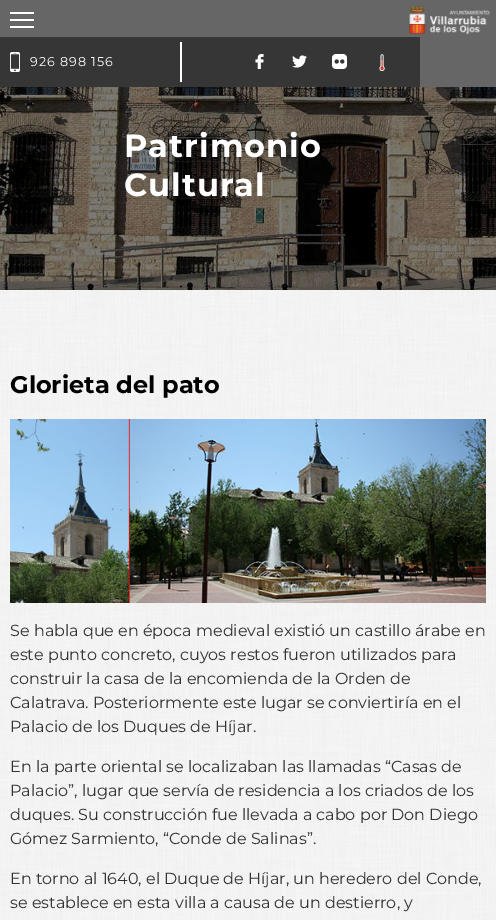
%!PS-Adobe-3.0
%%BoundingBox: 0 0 496 920
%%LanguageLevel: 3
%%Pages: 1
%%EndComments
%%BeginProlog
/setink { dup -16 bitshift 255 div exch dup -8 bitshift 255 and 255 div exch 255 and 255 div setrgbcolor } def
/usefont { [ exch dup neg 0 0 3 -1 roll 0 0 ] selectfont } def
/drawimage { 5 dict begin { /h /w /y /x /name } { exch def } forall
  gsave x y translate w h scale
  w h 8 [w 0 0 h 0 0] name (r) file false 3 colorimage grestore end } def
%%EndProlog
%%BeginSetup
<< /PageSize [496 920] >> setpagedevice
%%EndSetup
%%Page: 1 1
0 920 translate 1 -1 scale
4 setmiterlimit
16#FFFFFF setink
0 0 496 920 rectfill
(img1.raw) 0 290 496 630 drawimage
16#666666 setink
0 0 496 87 rectfill
(img2.raw) 408 6 82 29 drawimage
[
    [10 19 24 2 16#FFFFFF]
    [10 12 24 2 16#FFFFFF]
    [10 26 24 2 16#FFFFFF]
    [0 37 420 50 16#363636]
] { aload pop setink rectfill } forall
(img3.raw) 10 52 10 20 drawimage
/Montserrat-Regular 12.75 usefont
16#FFFFFF setink
30 66 moveto 1 0 (926 898 156) ashow
180 42 2 40 rectfill
(img4.raw) 255 54 9 15 drawimage
(img5.raw) 292 55 15 13 drawimage
(img6.raw) 332 54 15 15 drawimage
(img7.raw) 379 54 6 17 drawimage
(img8.raw) 0 87 496 203 drawimage
/Montserrat-Bold 32 usefont
124 157 moveto 1 0 (Patrimonio) ashow
124 196 moveto 1 0 (Cultural) ashow
/Montserrat-Bold 24 usefont
16#000000 setink
10 393 moveto (Glorieta del pato) show
(img9.raw) 10 419 476 184 drawimage
/Montserrat-Regular 16 usefont
16#333333 setink
[
    [(Se habla que en época medieval existió un castillo árabe en) 10 636]
    [(este punto concreto, cuyos restos fueron utilizados para) 10 660]
    [(construir la casa de la encomienda de la Orden de) 10 684]
    [(Calatrava. Posteriormente este lugar se conviertiría en el) 10 708]
    [(Palacio de los Duques de Híjar.) 10 732]
    [(En la parte oriental se localizaban las llamadas “Casas de) 10 772]
    [(Palacio”, lugar que servía de residencia a los criados de los) 10 796]
    [(duques. Su construcción fue llevada a cabo por Don Diego) 10 820]
    [(Gómez Sarmiento, “Conde de Salinas”.) 10 844]
    [(En torno al 1640, el Duque de Híjar, un heredero del Conde,) 10 884]
    [(se establece en esta villa a causa de un destierro, y) 10 908]
] { aload pop moveto show } forall
showpage
%%EOF
